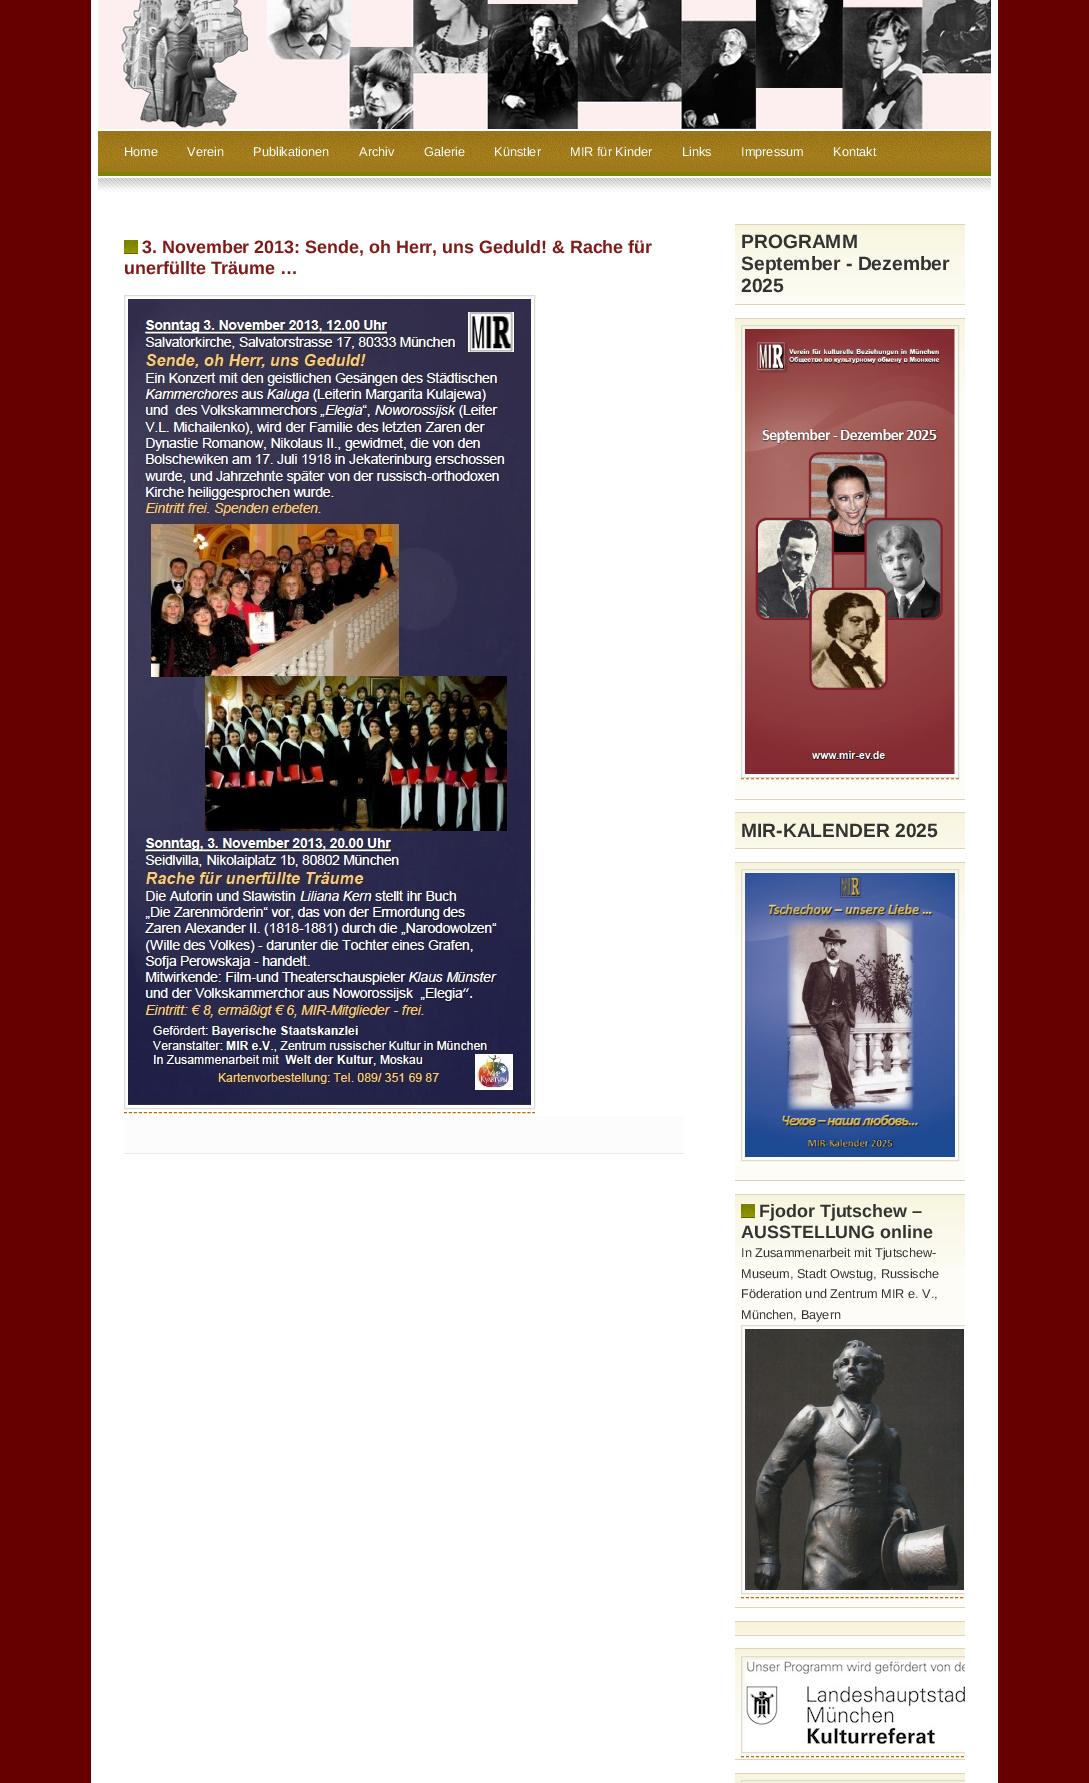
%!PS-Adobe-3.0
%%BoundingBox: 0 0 1089 1783
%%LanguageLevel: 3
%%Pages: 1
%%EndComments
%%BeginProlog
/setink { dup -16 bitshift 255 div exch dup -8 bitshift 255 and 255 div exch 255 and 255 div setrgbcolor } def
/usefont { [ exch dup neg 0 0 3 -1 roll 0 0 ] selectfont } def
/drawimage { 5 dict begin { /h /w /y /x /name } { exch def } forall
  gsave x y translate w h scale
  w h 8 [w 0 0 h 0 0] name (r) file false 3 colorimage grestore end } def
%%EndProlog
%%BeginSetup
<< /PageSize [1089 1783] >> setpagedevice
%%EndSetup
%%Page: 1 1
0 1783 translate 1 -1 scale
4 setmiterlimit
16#660000 setink
0 0 1089 1783 rectfill
16#FFFFFF setink
91 0 907 1783 rectfill
(img1.raw) 98 0 893 129 drawimage
16#7F8400 setink
98 172 893 4 rectfill
(img2.raw) 98 131 893 41 drawimage
/LiberationSans-Regular 12.75 usefont
16#FFFFFF setink
[
    [(Home) 124 156]
    [(Verein) 187 156]
    [(Publikationen) 253 156]
    [(Archiv) 359 156]
    [(Galerie) 424 156]
    [(Künstler) 494 156]
    [(MIR für Kinder) 570 156]
    [(Links) 682 156]
    [(Impressum) 741 156]
    [(Kontakt) 833 156]
] { aload pop moveto show } forall
(img3.raw) 98 178 893 13 drawimage
16#EAEAEA setink
124 1153 560 1 rectfill
(img4.raw) 124 240 14 14 drawimage
/LiberationSans-Bold 17.9 usefont
16#811916 setink
142 253 moveto (3. November 2013: Sende, oh Herr, uns Geduld! & Rache für) show
124 274 moveto (unerfüllte Träume …) show
16#DCDCDC setink
124.5 295.5 410 813 rectstroke
(img5.raw) 128 299 403 806 drawimage
16#B96D00 setink
[3 1.98] 0 setdash
124 1112.5 moveto 535 1112.5 lineto stroke
16#FCFCFC setink
124 1116 560 37 rectfill
16#FDFCF6 setink
735 297 230 7 rectfill
(img6.raw) 735 225 230 72 drawimage
16#E1D2BD setink
735 224 230 1 rectfill
735 304 230 1 rectfill
/LiberationSans-Bold 19.25 usefont
16#333333 setink
[
    [(PROGRAMM) 741 248]
    [(September - Dezember) 741 270]
    [(2025) 741 292]
] { aload pop moveto show } forall
16#FDFCF6 setink
735 391 230 408 rectfill
(img6.raw) 735 319 230 72 drawimage
16#E1D2BD setink
735 318 230 1 rectfill
735 799 230 1 rectfill
16#B96D00 setink
[3 2] 0 setdash
741 778.5 moveto 959 778.5 lineto stroke
16#DCDCDC setink
[] 0 setdash
741.5 325.5 217 452 rectstroke
(img7.raw) 745 329 210 445 drawimage
(img8.raw) 735 813 230 35 drawimage
16#E1D2BD setink
735 812 230 1 rectfill
735 848 230 1 rectfill
16#333333 setink
741 837 moveto (MIR-KALENDER 2025) show
16#FDFCF6 setink
735 935 230 245 rectfill
(img6.raw) 735 863 230 72 drawimage
16#E1D2BD setink
735 862 230 1 rectfill
735 1180 230 1 rectfill
16#DCDCDC setink
741.5 869.5 217 291 rectstroke
(img9.raw) 745 873 210 284 drawimage
16#FDFCF6 setink
735 1267 230 340 rectfill
(img6.raw) 735 1195 230 72 drawimage
16#E1D2BD setink
735 1194 230 1 rectfill
735 1607 230 1 rectfill
(img4.raw) 741 1204 14 14 drawimage
/LiberationSans-Bold 17.9 usefont
16#333333 setink
759 1217 moveto (Fjodor Tjutschew –) show
741 1238 moveto (AUSSTELLUNG online) show
/LiberationSans-Regular 12.75 usefont
[
    [(In Zusammenarbeit mit Tjutschew-) 741 1257]
    [(Museum, Stadt Owstug, Russische) 741 1278]
    [(Föderation und Zentrum MIR e. V.,) 741 1298]
    [(München, Bayern) 741 1319]
] { aload pop moveto show } forall
gsave
735 211 230 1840 rectclip
16#DCDCDC setink
741.5 1325.5 226 268 rectstroke
grestore
(img10.raw) 745 1329 219 261 drawimage
gsave
735 211 230 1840 rectclip
16#B96D00 setink
[3 1.98] 0 setdash
741 1597.5 moveto 968 1597.5 lineto stroke
grestore
(img11.raw) 735 1622 230 13 drawimage
[
    [735 1621 230 1 16#E1D2BD]
    [735 1635 230 1 16#E1D2BD]
    [735 1721 230 38 16#FDFCF6]
] { aload pop setink rectfill } forall
(img6.raw) 735 1649 230 72 drawimage
16#E1D2BD setink
735 1648 230 1 rectfill
735 1759 230 1 rectfill
gsave
735 211 230 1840 rectclip
16#DCDCDC setink
741.5 1656.5 237 96 rectstroke
grestore
(img12.raw) 745 1660 220 89 drawimage
gsave
735 211 230 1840 rectclip
16#B96D00 setink
[3 2] 0 setdash
741 1756.5 moveto 979 1756.5 lineto stroke
grestore
16#F8F5DF setink
735 1774 230 9 rectfill
16#E1D2BD setink
735 1773 230 1 rectfill
gsave
735 211 230 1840 rectclip
16#DCDCDC setink
741.5 1780.5 237 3 rectstroke
grestore
showpage
%%EOF
